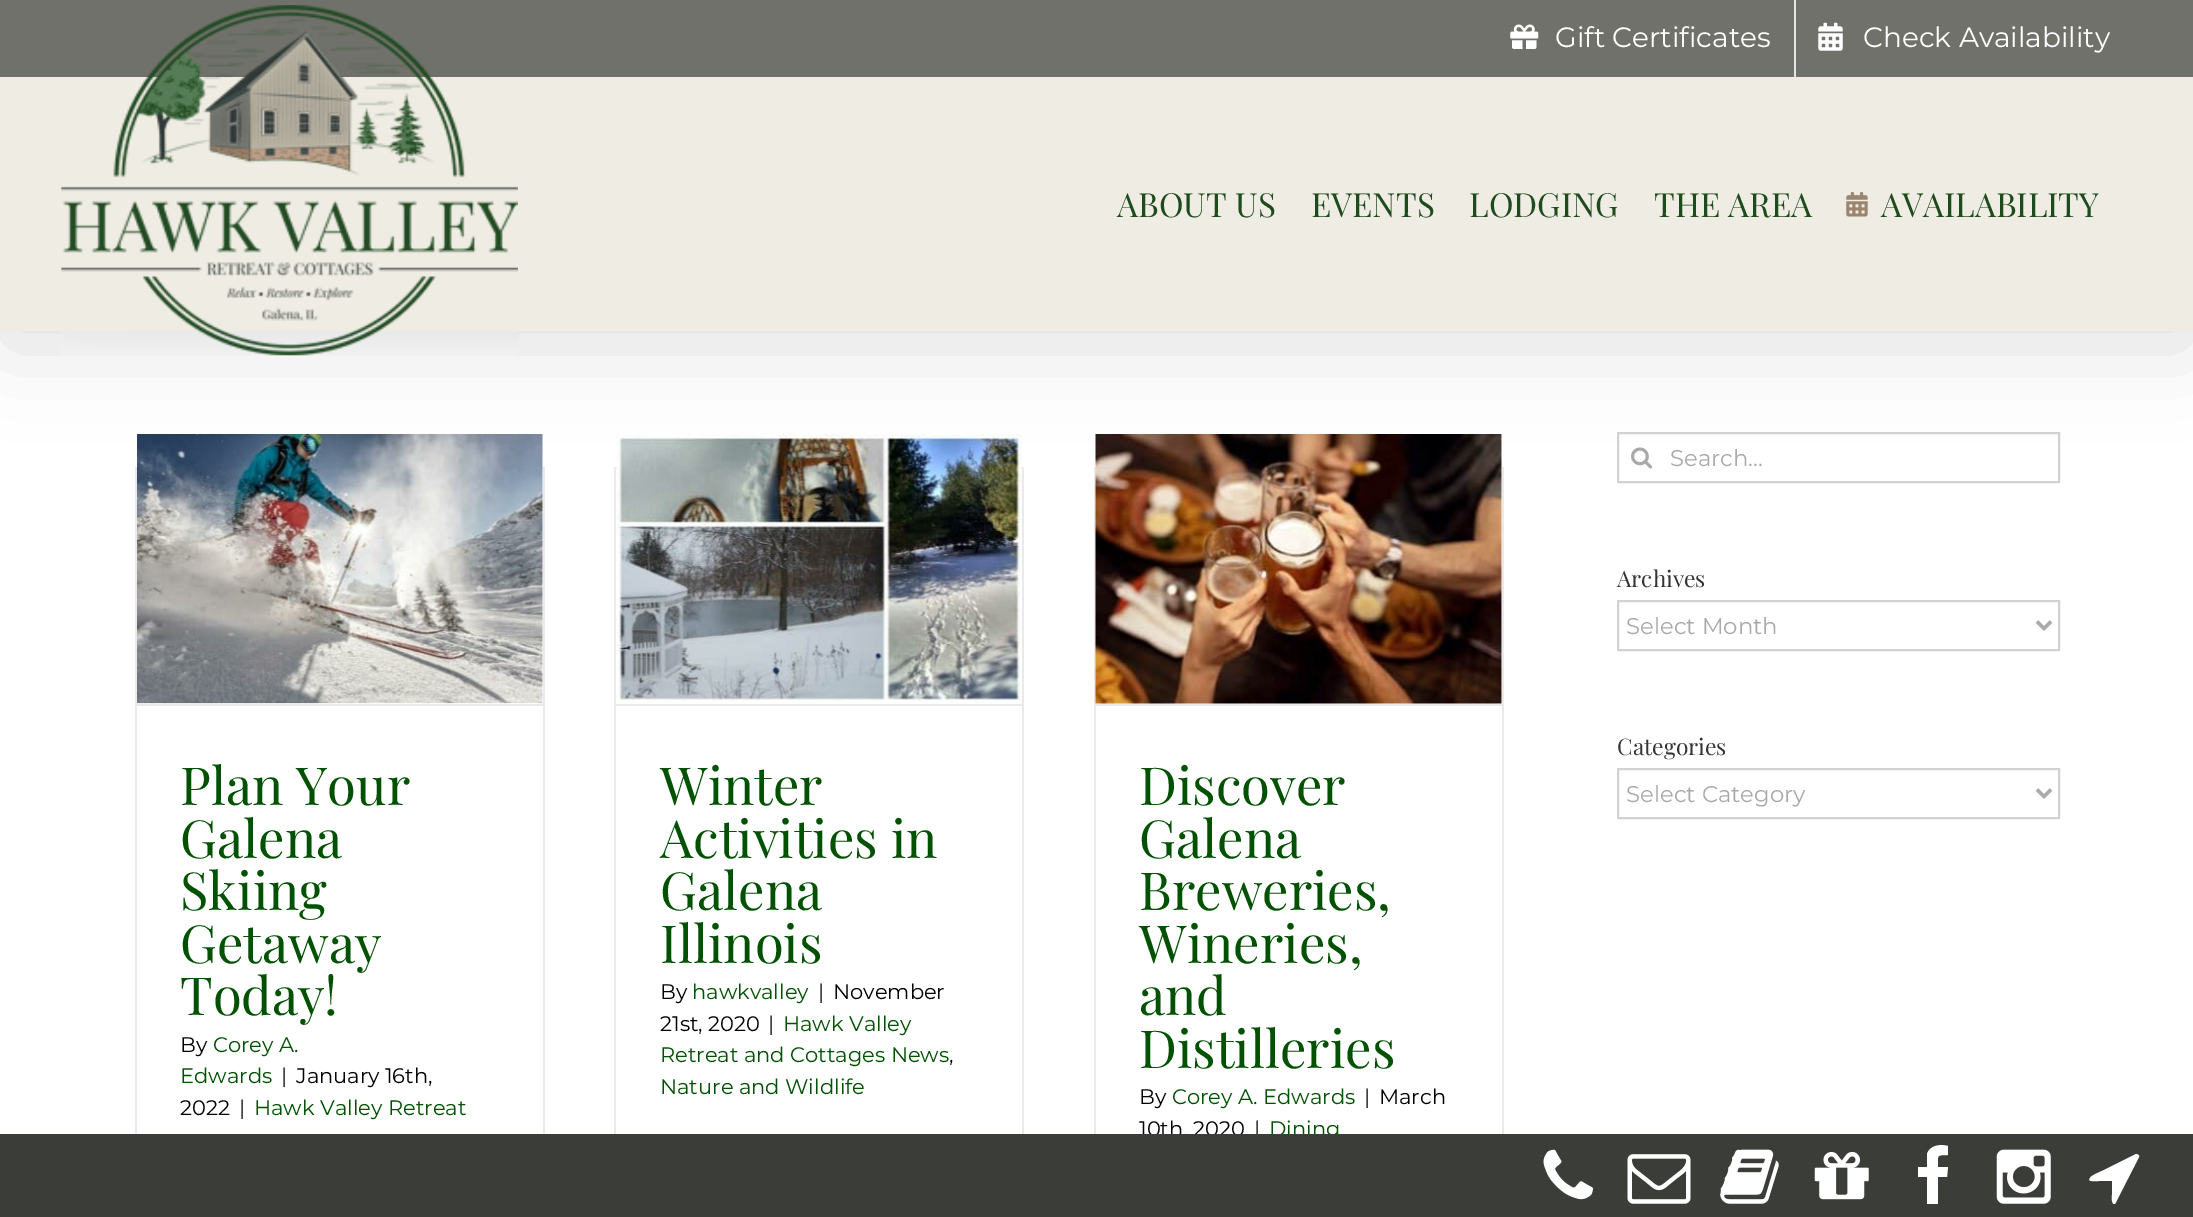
%!PS-Adobe-3.0
%%BoundingBox: 0 0 2193 1217
%%LanguageLevel: 3
%%Pages: 1
%%EndComments
%%BeginProlog
/setink { dup -16 bitshift 255 div exch dup -8 bitshift 255 and 255 div exch 255 and 255 div setrgbcolor } def
/usefont { [ exch dup neg 0 0 3 -1 roll 0 0 ] selectfont } def
/setalpha { dup .setfillconstantalpha .setstrokeconstantalpha } def
/rrect { 5 dict begin { /r /h /w /y /x } { exch def } forall
  x r add y moveto x w add y 2 copy h add r arct x w add y h add x 1 index r arct
  x y h add x y r arct x y 2 copy exch w add exch r arct closepath end } def
/softshadow { 12 dict begin { /a /b /q /h /w /y /x } { exch def } forall gsave /was 0 def
  9 -2 -9 { dup b mul 4 div /e exch def 1 sub .425 mul 2.718 exch exp 1 add a .99 .min exch div /now exch def
    1 1 now sub 1 was sub div sub setalpha /was now def
    w h .min e 2 mul add 0 gt { x e sub y e sub w e 2 mul add h e 2 mul add
      q e add b .6 mul add w h .min 2 div e add .min 0 .max rrect fill } if } for grestore end } def
/drawimage { 5 dict begin { /h /w /y /x /name } { exch def } forall
  gsave x y translate w h scale
  w h 8 [w 0 0 h 0 0] name (r) file false 3 colorimage grestore end } def
%%EndProlog
%%BeginSetup
<< /PageSize [2193 1217] /PageUsesTransparency true >> setpagedevice
%%EndSetup
%%Page: 1 1
0 .pushpdf14devicefilter
0 1217 translate 1 -1 scale
4 setmiterlimit
16#FFFFFF setink
0 0 2193 1217 rectfill
16#D2D2D2 setink
2 setlinewidth
1618 433 441 49 rectstroke
(img5.raw) 1631 447 22 22 drawimage
[
    [542 467 2 2 16#EBEAEA]
    [543 467 2 667 16#EBEAEA]
    [135 467 2 667 16#EBEAEA]
] { aload pop setink rectfill } forall
(img6.raw) 137 434 406 270 drawimage
[
    [614 467 410 2 16#EBEAEA]
    [1022 467 2 667 16#EBEAEA]
    [614 467 2 667 16#EBEAEA]
] { aload pop setink rectfill } forall
(img7.raw) 616 434 406 269 drawimage
[
    [1501 467 2 2 16#EBEAEA]
    [1502 467 2 667 16#EBEAEA]
    [1094 467 2 667 16#EBEAEA]
] { aload pop setink rectfill } forall
(img8.raw) 1095 434 407 270 drawimage
16#000000 setink
4 21 2187 324 0 44 0.14 softshadow
16#70716A setink
0 0 2193 77 rectfill
16#EFECE3 setink
0 77 2193 254 rectfill
(img1.raw) 1510 24 29 25 drawimage
/Montserrat-Regular 28 usefont
16#FFFFFF setink
1555 47 moveto (Gift Certificates) show
16#E5E5E5 setink
1794 0 2 77 rectfill
(img2.raw) 1818 22 25 29 drawimage
16#FFFFFF setink
1863 47 moveto (Check Availability) show
(img3.raw) 61 5 457 351 drawimage
/PlayfairDisplay-Regular 33.25 usefont
16#1E4B1E setink
[
    [(ABOUT US) 1117 217]
    [(EVENTS) 1311 217]
    [(LODGING) 1469 217]
    [(THE AREA) 1654 217]
] { aload pop moveto show } forall
(img4.raw) 1846 192 22 25 drawimage
1881 217 moveto (AVAILABILITY) show
/Montserrat-Regular 22.75 usefont
16#AAA9A9 setink
1670 466 moveto (Search...) show
/PlayfairDisplay-Regular 22.75 usefont
16#333333 setink
1617 587 moveto (Archives) show
16#D2D2D2 setink
1618 601 441 49 rectstroke
16#AAA9A9 setink
3.5 setlinewidth
2037 621.5 moveto 2044 628.5 lineto 2051 621.5 lineto stroke
/Montserrat-Regular 22.75 usefont
1626 634 moveto (Select Month) show
/PlayfairDisplay-Regular 22.75 usefont
16#333333 setink
1617 755 moveto (Categories) show
16#D2D2D2 setink
2 setlinewidth
1618 769 441 49 rectstroke
16#AAA9A9 setink
3.5 setlinewidth
2037 789.5 moveto 2044 796.5 lineto 2051 789.5 lineto stroke
/Montserrat-Regular 22.75 usefont
1626 802 moveto (Select Category) show
16#EBEAEA setink
137 704 406 2 rectfill
/PlayfairDisplay-Regular 52.5 usefont
16#005101 setink
[
    [(Plan Your) 180 805]
    [(Galena) 180 858]
    [(Skiing) 180 910]
    [(Getaway) 180 963]
    [(Today!) 180 1015]
] { aload pop moveto show } forall
/Montserrat-Regular 21 usefont
16#000000 setink
180 1052 moveto (By) show
16#005101 setink
213 1052 moveto (Corey A.) show
180 1083 moveto (Edwards) show
16#000000 setink
[
    [(|) 281 1083]
    [(January 16th,) 296 1083]
    [(2022) 180 1115]
    [(|) 239 1115]
] { aload pop moveto show } forall
16#005101 setink
254 1115 moveto (Hawk Valley Retreat) show
16#EBEAEA setink
616 704 406 2 rectfill
/PlayfairDisplay-Regular 52.5 usefont
16#005101 setink
[
    [(Winter) 660 805]
    [(Activities in) 660 858]
    [(Galena) 660 910]
    [(Illinois) 660 963]
] { aload pop moveto show } forall
/Montserrat-Regular 21 usefont
16#000000 setink
660 999 moveto (By) show
16#005101 setink
692 999 moveto (hawkvalley) show
16#000000 setink
[
    [(|) 818 999]
    [(November) 833 999]
    [(21st, 2020) 660 1031]
    [(|) 768 1031]
] { aload pop moveto show } forall
16#005101 setink
783 1031 moveto (Hawk Valley) show
660 1062 moveto (Retreat and Cottages News) show
16#000000 setink
949 1062 moveto (,) show
16#005101 setink
660 1094 moveto (Nature and Wildlife) show
16#EBEAEA setink
1096 704 406 2 rectfill
/PlayfairDisplay-Regular 52.5 usefont
16#005101 setink
[
    [(Discover) 1139 805]
    [(Galena) 1139 858]
    [(Breweries,) 1139 910]
    [(Wineries,) 1139 963]
    [(and) 1139 1015]
    [(Distilleries) 1139 1068]
] { aload pop moveto show } forall
/Montserrat-Regular 21 usefont
16#000000 setink
1139 1104 moveto (By) show
16#005101 setink
1172 1104 moveto (Corey A. Edwards) show
16#000000 setink
[
    [(|) 1364 1104]
    [(March) 1379 1104]
    [(10th, 2020) 1139 1136]
    [(|) 1254 1136]
] { aload pop moveto show } forall
16#005101 setink
1269 1136 moveto (Dining) show
16#3B3D38 setink
0 1134 2193 83 rectfill
(img9.raw) 1543 1149 50 51 drawimage
(img10.raw) 1627 1154 64 50 drawimage
(img11.raw) 1720 1149 59 55 drawimage
(img12.raw) 1814 1151 55 49 drawimage
16#FFFFFF setink
1948 1146 moveto 1948 1155 lineto 1936 1155 1938 1155 1938 1167 curveto 1948 1167 lineto 1947 1177 lineto 1938 1177 lineto 1938 1204 lineto 1927 1204 lineto 1927 1177 lineto 1918 1177 lineto 1918 1167 lineto 1927 1167 lineto 1927 1154 lineto 1930 1145 1940 1144 1948 1146 curveto closepath fill
(img13.raw) 1996 1149 55 55 drawimage
2139 1157 moveto 2116 1202 lineto 2116 1203 2115 1204 2114 1204 curveto 2111 1203 2112 1196 2112 1195 curveto 2112 1181 lineto 2099 1181 lineto 2094 1181 2087 1182 2090 1178 curveto 2091 1175 2103 1171 2106 1169 curveto 2136 1154 lineto 2138 1154 2140 1156 2139 1157 curveto closepath fill
.poppdf14devicefilter showpage
%%EOF
